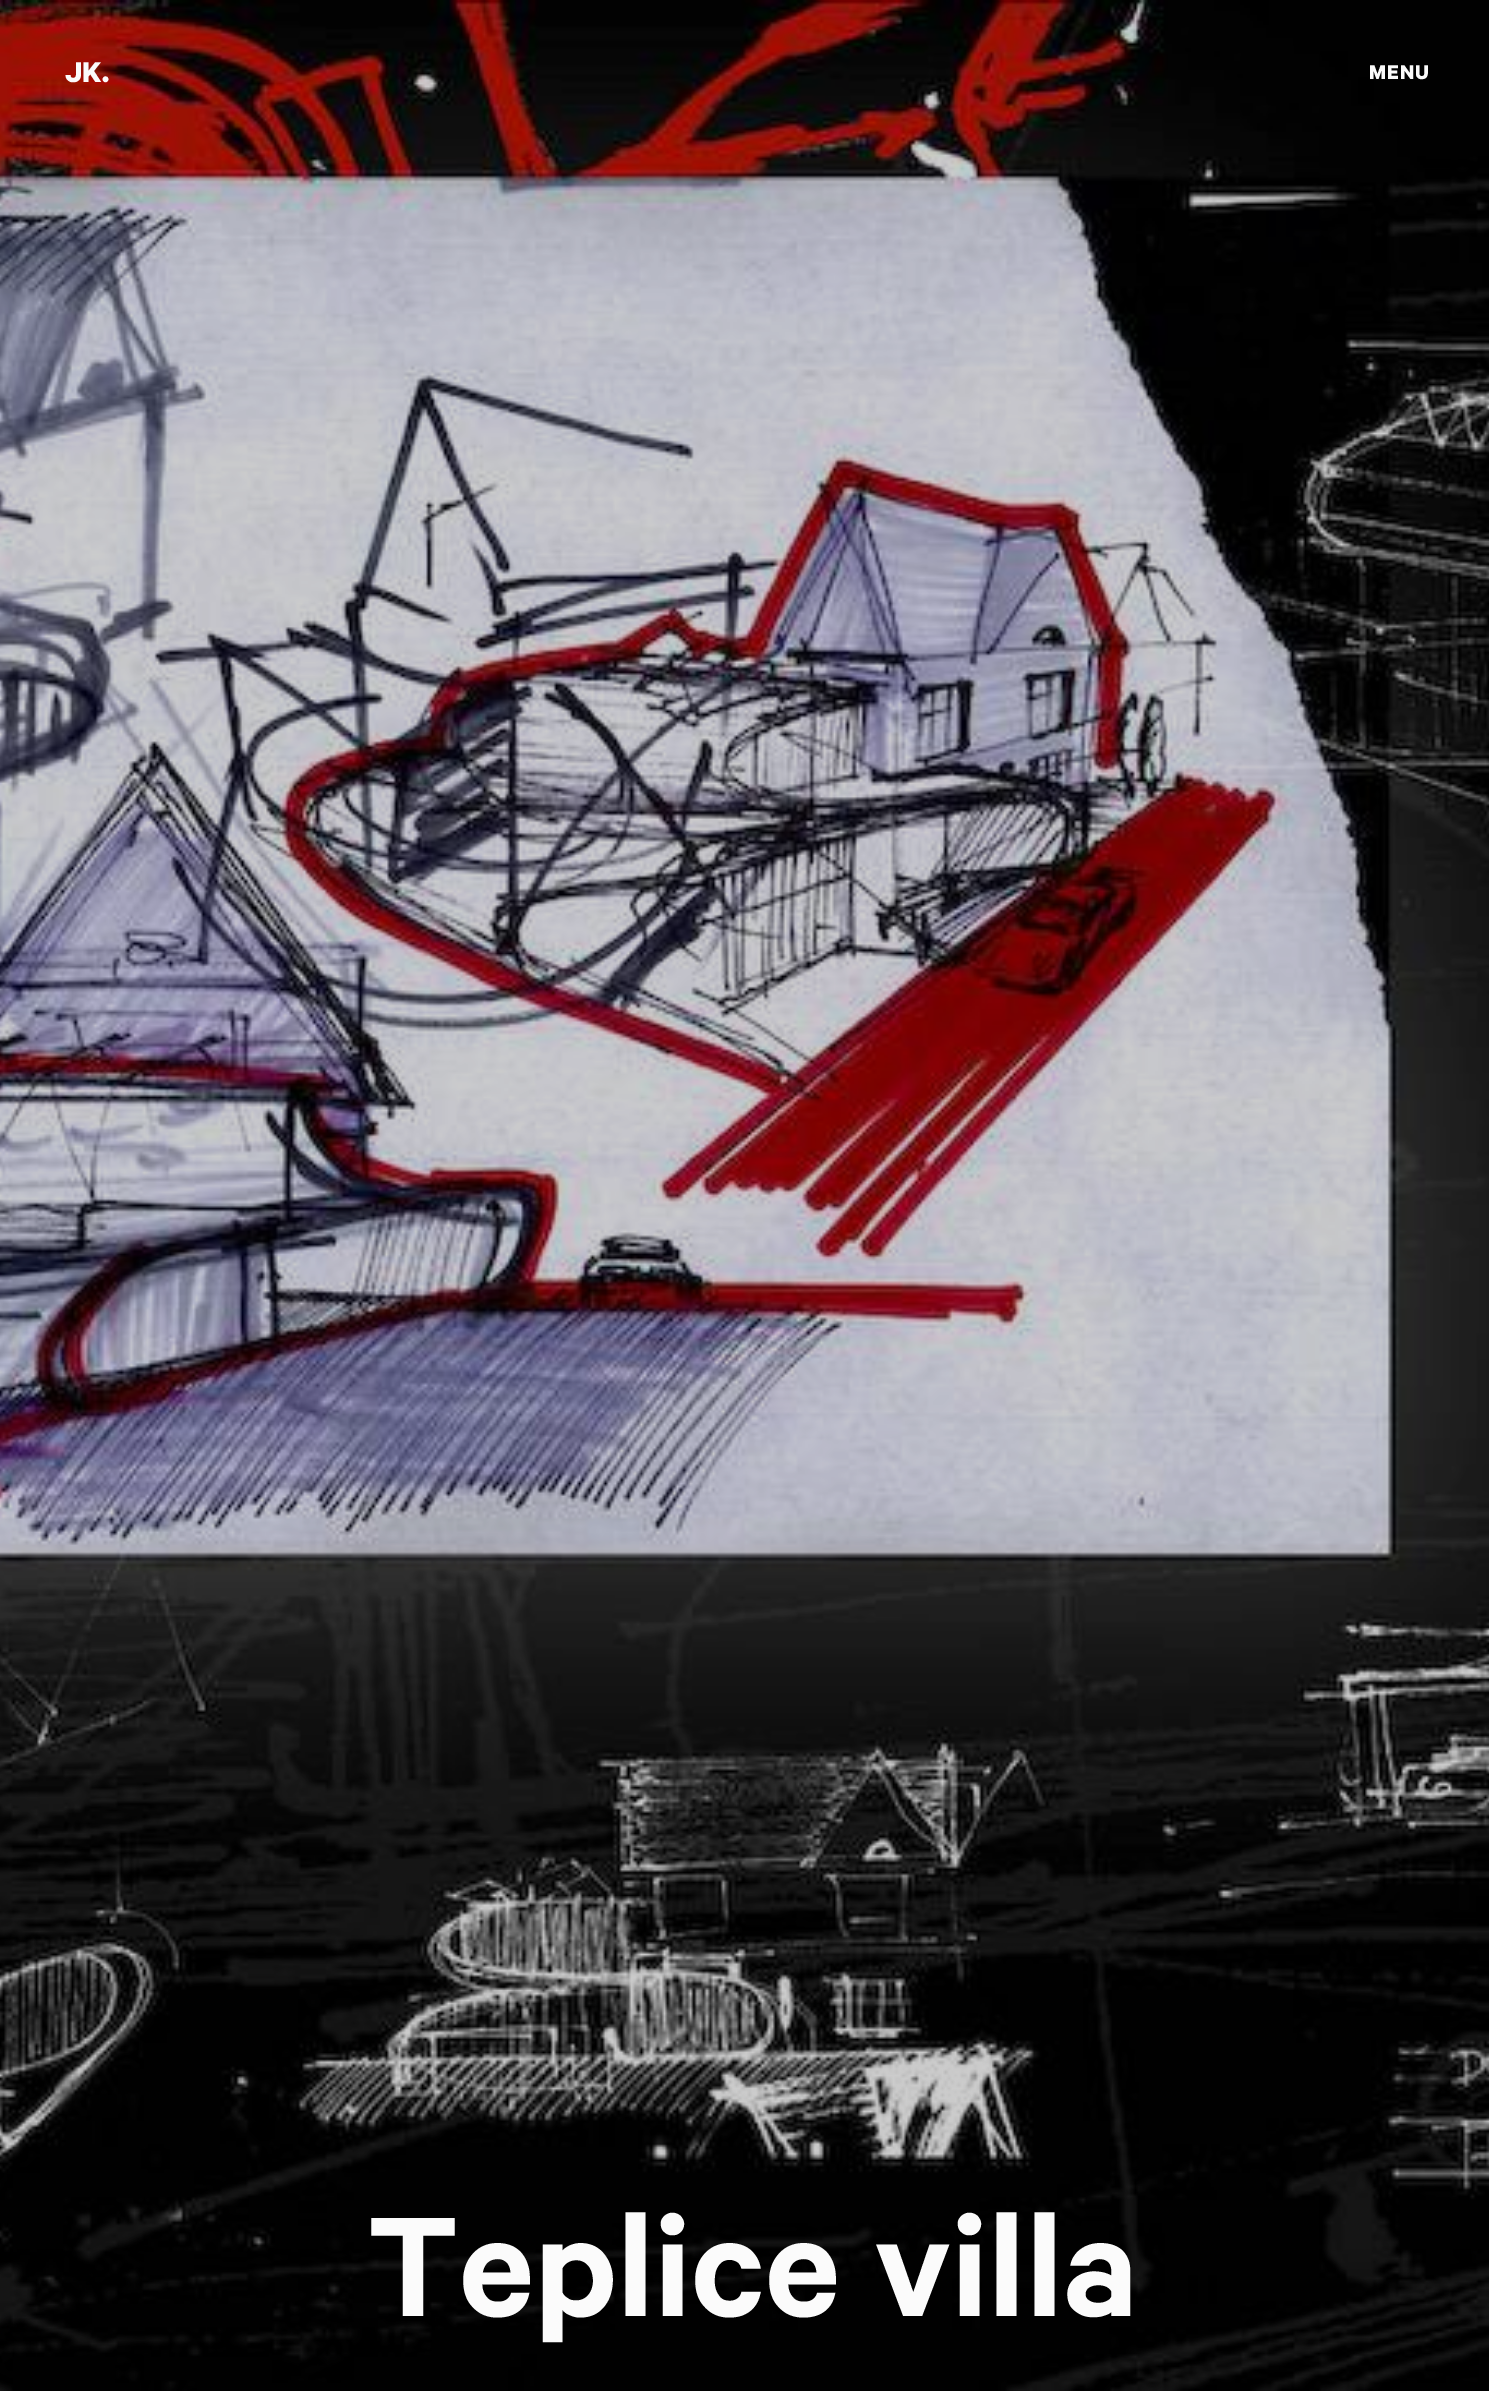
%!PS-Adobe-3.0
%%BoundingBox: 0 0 1489 2391
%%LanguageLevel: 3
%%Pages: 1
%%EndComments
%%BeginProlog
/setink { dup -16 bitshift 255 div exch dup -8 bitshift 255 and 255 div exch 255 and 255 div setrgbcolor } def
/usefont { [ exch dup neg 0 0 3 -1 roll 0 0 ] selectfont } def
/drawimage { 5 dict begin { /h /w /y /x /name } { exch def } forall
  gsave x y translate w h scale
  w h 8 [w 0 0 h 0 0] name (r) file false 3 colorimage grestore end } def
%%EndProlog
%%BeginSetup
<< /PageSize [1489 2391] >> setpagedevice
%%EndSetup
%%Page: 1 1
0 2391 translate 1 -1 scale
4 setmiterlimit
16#FFFFFF setink
0 0 1489 2391 rectfill
(img1.raw) 0 0 1489 2391 drawimage
/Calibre-Bold 32 usefont
16#FBFBFB setink
65 82 moveto (JK.) show
/Calibre-Bold 22.5 usefont
1369 79 moveto 1 0 (MENU) ashow
/Calibre-SemiBold 160 usefont
367 2316 moveto (Teplice villa) show
showpage
%%EOF
